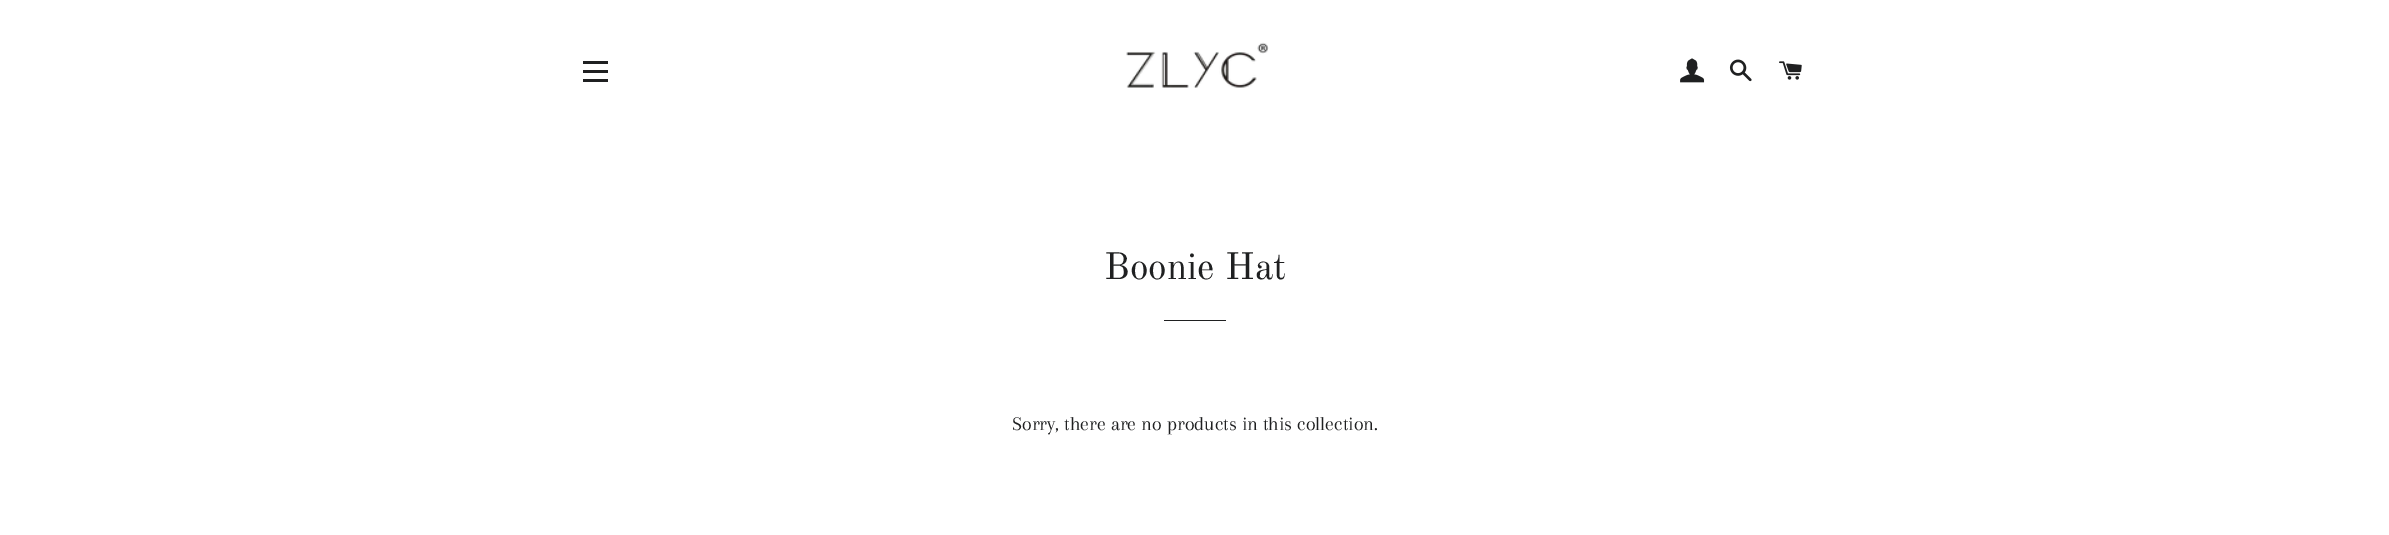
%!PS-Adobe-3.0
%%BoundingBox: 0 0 2389 535
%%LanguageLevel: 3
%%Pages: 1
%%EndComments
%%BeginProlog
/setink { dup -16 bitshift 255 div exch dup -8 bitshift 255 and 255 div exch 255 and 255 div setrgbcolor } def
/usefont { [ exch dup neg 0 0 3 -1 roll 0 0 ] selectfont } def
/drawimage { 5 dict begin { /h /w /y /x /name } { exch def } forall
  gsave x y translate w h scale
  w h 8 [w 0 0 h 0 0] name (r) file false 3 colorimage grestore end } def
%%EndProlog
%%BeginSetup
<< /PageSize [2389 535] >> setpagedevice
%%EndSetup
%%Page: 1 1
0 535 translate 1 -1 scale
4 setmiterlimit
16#FFFFFF setink
0 0 2389 535 rectfill
[
    [583 61 25 3 16#1F2021]
    [583 70 25 3 16#1F2021]
    [583 79 25 3 16#1F2021]
] { aload pop setink rectfill } forall
(img1.raw) 1126 42 143 46 drawimage
(img2.raw) 1680 58 25 25 drawimage
(img3.raw) 1729 59 23 23 drawimage
(img4.raw) 1779 61 23 19 drawimage
/OldStandardTT-Regular 37.5 usefont
1104 279 moveto (Boonie Hat) show
1164 320 62 1 rectfill
/Arapey-Regular 20 usefont
1012 430 moveto (Sorry, there are no products in this collection.) show
showpage
%%EOF
